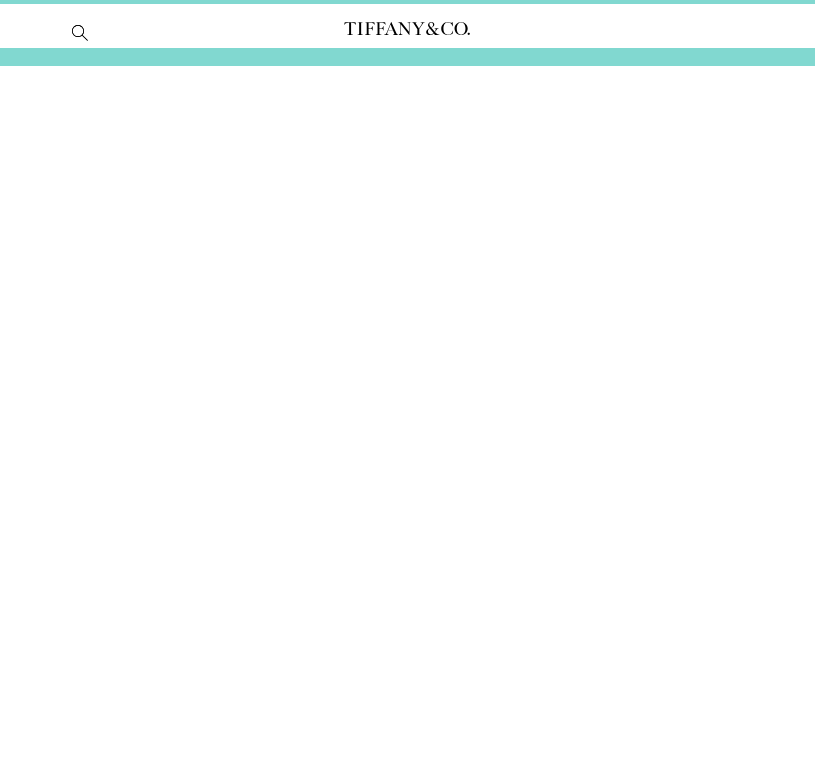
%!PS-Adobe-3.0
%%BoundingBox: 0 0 815 763
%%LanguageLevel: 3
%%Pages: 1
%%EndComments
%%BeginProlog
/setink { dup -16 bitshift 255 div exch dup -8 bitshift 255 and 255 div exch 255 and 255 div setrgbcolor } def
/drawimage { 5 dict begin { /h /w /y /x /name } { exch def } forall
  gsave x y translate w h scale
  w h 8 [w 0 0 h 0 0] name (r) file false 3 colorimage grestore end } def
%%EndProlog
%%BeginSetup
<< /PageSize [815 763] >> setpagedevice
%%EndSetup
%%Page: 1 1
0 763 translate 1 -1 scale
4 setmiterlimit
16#FFFFFF setink
0 0 815 763 rectfill
16#81D8D0 setink
0 0 815 4 rectfill
(img1.raw) 72 25 16 16 drawimage
(img2.raw) 344 22 126 13 drawimage
0 48 815 18 rectfill
showpage
%%EOF
